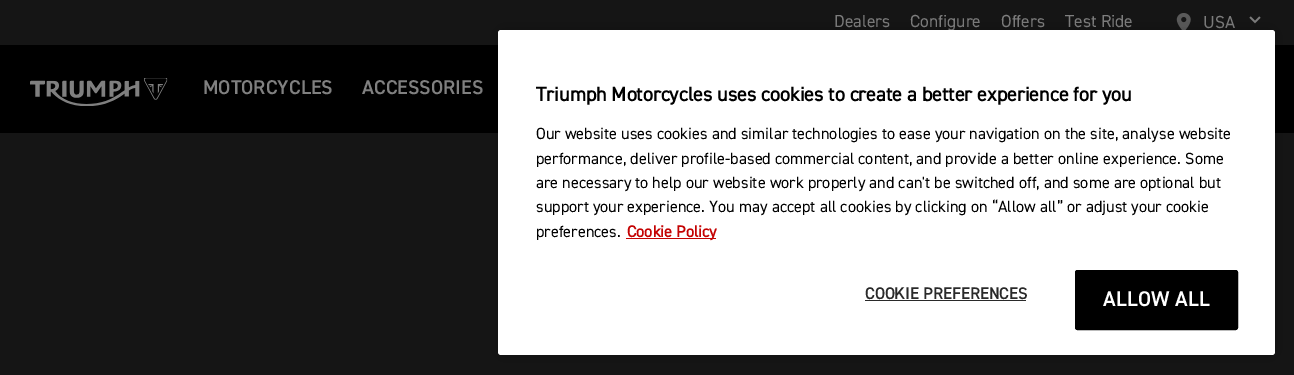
%!PS-Adobe-3.0
%%BoundingBox: 0 0 1294 375
%%LanguageLevel: 3
%%Pages: 1
%%EndComments
%%BeginProlog
/setink { dup -16 bitshift 255 div exch dup -8 bitshift 255 and 255 div exch 255 and 255 div setrgbcolor } def
/usefont { [ exch dup neg 0 0 3 -1 roll 0 0 ] selectfont } def
/setalpha { dup .setfillconstantalpha .setstrokeconstantalpha } def
/rrect { 5 dict begin { /r /h /w /y /x } { exch def } forall
  x r add y moveto x w add y 2 copy h add r arct x w add y h add x 1 index r arct
  x y h add x y r arct x y 2 copy exch w add exch r arct closepath end } def
/softshadow { 12 dict begin { /a /b /q /h /w /y /x } { exch def } forall gsave /was 0 def
  9 -2 -9 { dup b mul 4 div /e exch def 1 sub .425 mul 2.718 exch exp 1 add a .99 .min exch div /now exch def
    1 1 now sub 1 was sub div sub setalpha /was now def
    w h .min e 2 mul add 0 gt { x e sub y e sub w e 2 mul add h e 2 mul add
      q e add b .6 mul add w h .min 2 div e add .min 0 .max rrect fill } if } for grestore end } def
/drawimage { 5 dict begin { /h /w /y /x /name } { exch def } forall
  gsave x y translate w h scale
  w h 8 [w 0 0 h 0 0] name (r) file false 3 colorimage grestore end } def
%%EndProlog
%%BeginSetup
<< /PageSize [1294 375] /PageUsesTransparency true >> setpagedevice
%%EndSetup
%%Page: 1 1
0 .pushpdf14devicefilter
0 375 translate 1 -1 scale
4 setmiterlimit
16#151515 setink
0 0 1294 375 rectfill
/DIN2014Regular-Regular 17.5 usefont
16#808080 setink
[
    [(Dealers) 834 27]
    [(Configure) 910 27]
    [(Offers) 1001 27]
    [(Test Ride) 1065 27]
] { aload pop moveto show } forall
(img1.raw) 1176 13 15 17 drawimage
1203 28 moveto (USA) show
(img2.raw) 1249 16 12 8 drawimage
16#000000 setink
0 45 1294 88 rectfill
(img3.raw) 30 78 138 28 drawimage
/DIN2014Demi-Regular 20 usefont
16#808080 setink
203 94 moveto (MOTORCYCLES) show
362 94 moveto (ACCESSORIES) show
16#000000 setink
498 30 777 325 3 11 0.2 softshadow
16#FFFFFF setink
498 30 777 325 3 rrect fill
/DIN2014Regular-Bold 20 usefont
16#000000 setink
536 101 moveto (Triumph Motorcycles uses cookies to create a better experience for you) show
/DIN2014Regular-Regular 16.25 usefont
[
    [(Our website uses cookies and similar technologies to ease your navigation on the site, analyse website) 536 139]
    [(performance, deliver profile-based commercial content, and provide a better online experience. Some) 536 164]
    [(are necessary to help our website work properly and can't be switched off, and some are optional but) 536 188]
    [(support your experience. You may accept all cookies by clicking on “Allow all” or adjust your cookie) 536 212]
    [(preferences.) 536 237]
] { aload pop moveto show } forall
16#C40303 setink
626 238 90 1 rectfill
/DIN2014Regular-Bold 16.25 usefont
627 237 moveto (Cookie Policy) show
16#2A2A2A setink
865 299 moveto 0.2 0 (COOKIE PREFERENCES) ashow
865 300 161 1 rectfill
16#000000 setink
1075.5 270.5 162 59 2 rrect gsave fill grestore
stroke
/DIN2014Demi-Regular 21.25 usefont
16#FFFFFF setink
1103 306 moveto 0.25 0 (ALLOW ALL) ashow
.poppdf14devicefilter showpage
%%EOF
